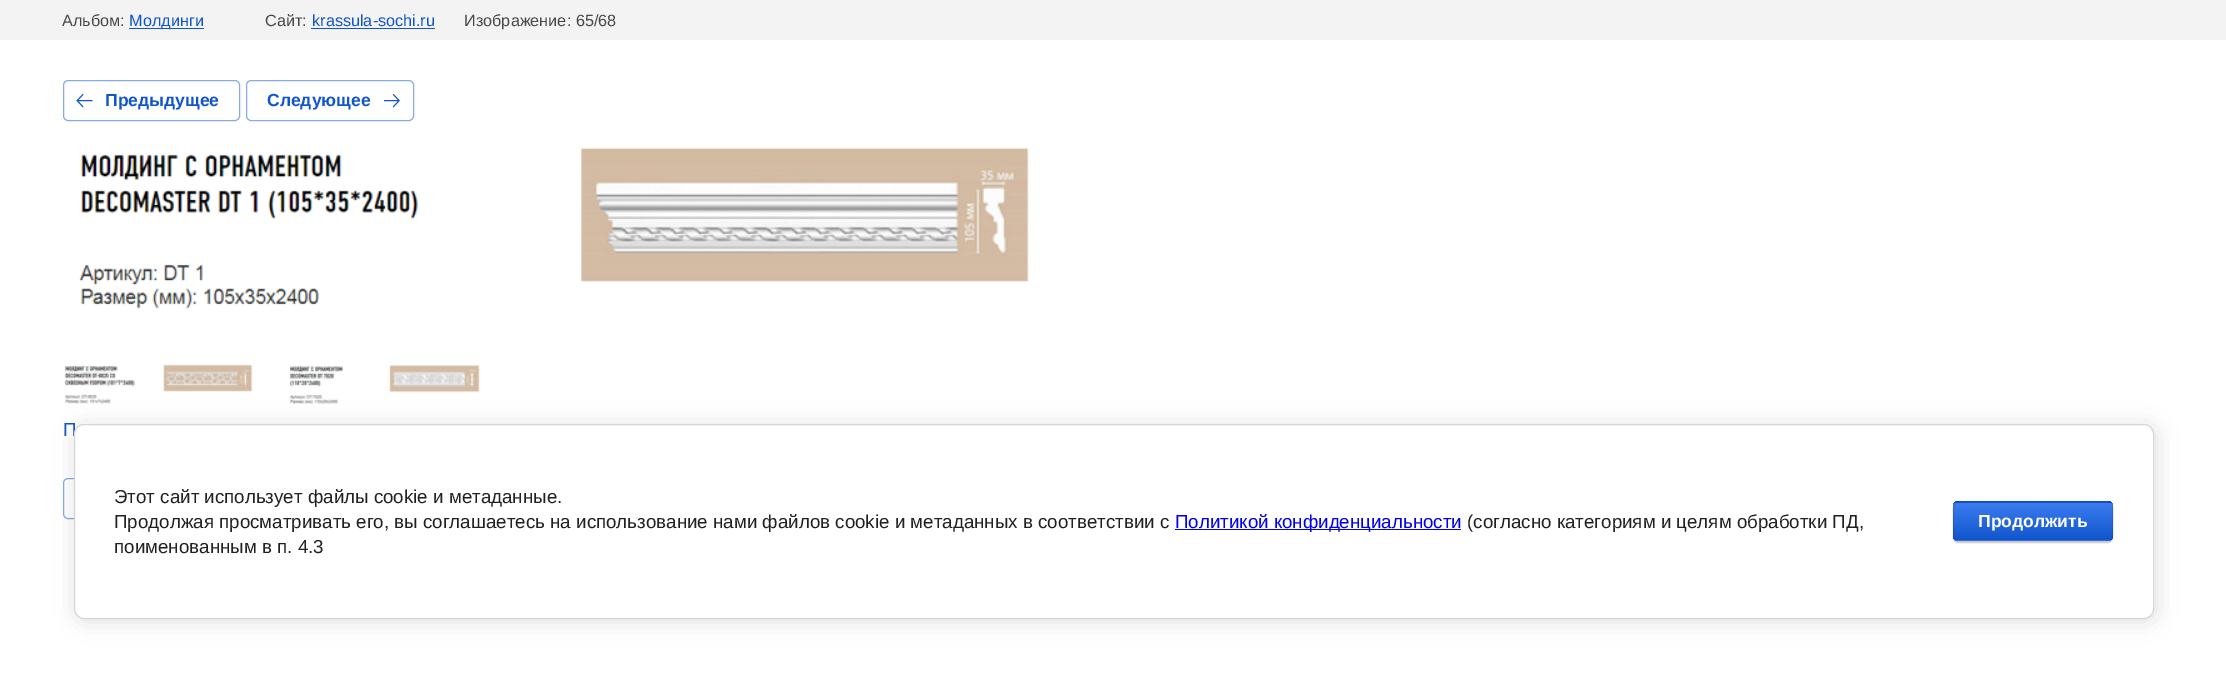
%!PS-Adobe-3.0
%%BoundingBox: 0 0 2226 698
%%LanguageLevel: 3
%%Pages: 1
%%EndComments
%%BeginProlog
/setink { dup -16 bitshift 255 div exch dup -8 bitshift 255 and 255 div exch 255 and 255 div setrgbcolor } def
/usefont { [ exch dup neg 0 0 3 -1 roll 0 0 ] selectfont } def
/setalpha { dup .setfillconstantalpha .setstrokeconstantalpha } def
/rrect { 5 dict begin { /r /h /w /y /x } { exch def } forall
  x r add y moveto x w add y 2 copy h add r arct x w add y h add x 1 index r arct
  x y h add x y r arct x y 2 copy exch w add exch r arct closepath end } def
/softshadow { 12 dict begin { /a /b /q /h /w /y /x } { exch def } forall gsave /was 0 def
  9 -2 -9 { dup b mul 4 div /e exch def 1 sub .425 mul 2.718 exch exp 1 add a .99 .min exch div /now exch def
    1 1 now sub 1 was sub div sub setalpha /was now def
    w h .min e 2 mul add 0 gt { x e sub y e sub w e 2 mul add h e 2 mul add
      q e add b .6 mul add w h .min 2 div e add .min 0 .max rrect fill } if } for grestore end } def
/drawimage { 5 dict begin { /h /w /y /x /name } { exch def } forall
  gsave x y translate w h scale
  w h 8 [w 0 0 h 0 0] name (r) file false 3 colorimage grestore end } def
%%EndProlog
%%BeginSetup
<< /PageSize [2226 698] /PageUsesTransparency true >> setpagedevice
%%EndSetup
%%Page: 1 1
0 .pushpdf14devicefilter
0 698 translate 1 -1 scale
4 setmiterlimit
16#FFFFFF setink
0 0 2226 698 rectfill
16#F3F3F3 setink
0 0 2226 40 rectfill
/LiberationSans-Regular 16.25 usefont
16#484848 setink
62 26 moveto (Альбом:) show
16#1155CC setink
129 28 75 1 rectfill
129 26 moveto (Молдинги) show
16#484848 setink
265 26 moveto (Сайт:) show
16#1155CC setink
312 26 moveto (krassula-sochi.ru) show
311 28 124 1 rectfill
16#484848 setink
464 26 moveto (Изображение: 65/68) show
16#88AAE6 setink
63.5 80.5 176 40 4.5 rrect stroke
(img1.raw) 76 94 17 14 drawimage
/LiberationSans-Bold 17.5 usefont
16#1155CC setink
105 106 moveto (Предыдущее) show
16#88AAE6 setink
246.5 80.5 167 40 4.5 rrect stroke
16#1155CC setink
267 106 moveto (Следующее) show
(img2.raw) 384 94 16 14 drawimage
(img3.raw) 78 147 951 162 drawimage
(img4.raw) 289 365 191 39 drawimage
(img5.raw) 64 364 189 40 drawimage
/LiberationSans-Regular 18.75 usefont
63 436 moveto (П) show
16#88AAE6 setink
63.5 478.5 235 40 4.5 rrect stroke
16#000000 setink
76 426 2080 195 10 11 0.14 softshadow
16#FFFFFF setink
74.5 424.5 2079 194 9.5 rrect gsave fill grestore
16#D6D6D6 setink
stroke
16#212121 setink
114 503 moveto (Этот сайт использует файлы cookie и метаданные.) show
114 528 moveto (Продолжая просматривать его, вы соглашаетесь на использование нами файлов cookie и метаданных в соответствии с) show
16#0000EE setink
1175 529 286 1 rectfill
1175 528 moveto (Политикой конфиденциальности) show
16#212121 setink
1467 528 moveto (\(согласно категориям и целям обработки ПД,) show
114 553 moveto (поименованным в п. 4.3) show
16#000000 setink
1953 503 160 40 5 0.5 0.2 softshadow
gsave
1953 501 160 40 5 rrect clip newpath
gsave 1953 501 moveto 2113 501 lineto 2113 503 lineto 1953 503 lineto closepath clip newpath
<< /ShadingType 2 /ColorSpace /DeviceRGB /Coords [2033 465 2033 503] /Extend [true true] /Function << /FunctionType 2 /Domain [0 1] /C0 [0.231 0.486 0.937] /C1 [0.067 0.333 0.8] /N 1 >> >> shfill grestore
gsave 1953 503 moveto 2113 503 lineto 2113 540 lineto 1953 540 lineto closepath clip newpath
<< /ShadingType 2 /ColorSpace /DeviceRGB /Coords [2033 503 2033 540] /Extend [true true] /Function << /FunctionType 2 /Domain [0 1] /C0 [0.231 0.486 0.937] /C1 [0.067 0.333 0.8] /N 1 >> >> shfill grestore
gsave 1953 540 moveto 2113 540 lineto 2113 541 lineto 1953 541 lineto closepath clip newpath
<< /ShadingType 2 /ColorSpace /DeviceRGB /Coords [2033 540 2033 578] /Extend [true true] /Function << /FunctionType 2 /Domain [0 1] /C0 [0.231 0.486 0.937] /C1 [0.067 0.333 0.8] /N 1 >> >> shfill grestore
grestore
0.1 setalpha
1953.5 501.5 159 39 4.5 rrect stroke
/LiberationSans-Bold 17.5 usefont
1 setalpha
16#FFFFFF setink
1978 527 moveto (Продолжить) show
.poppdf14devicefilter showpage
%%EOF
